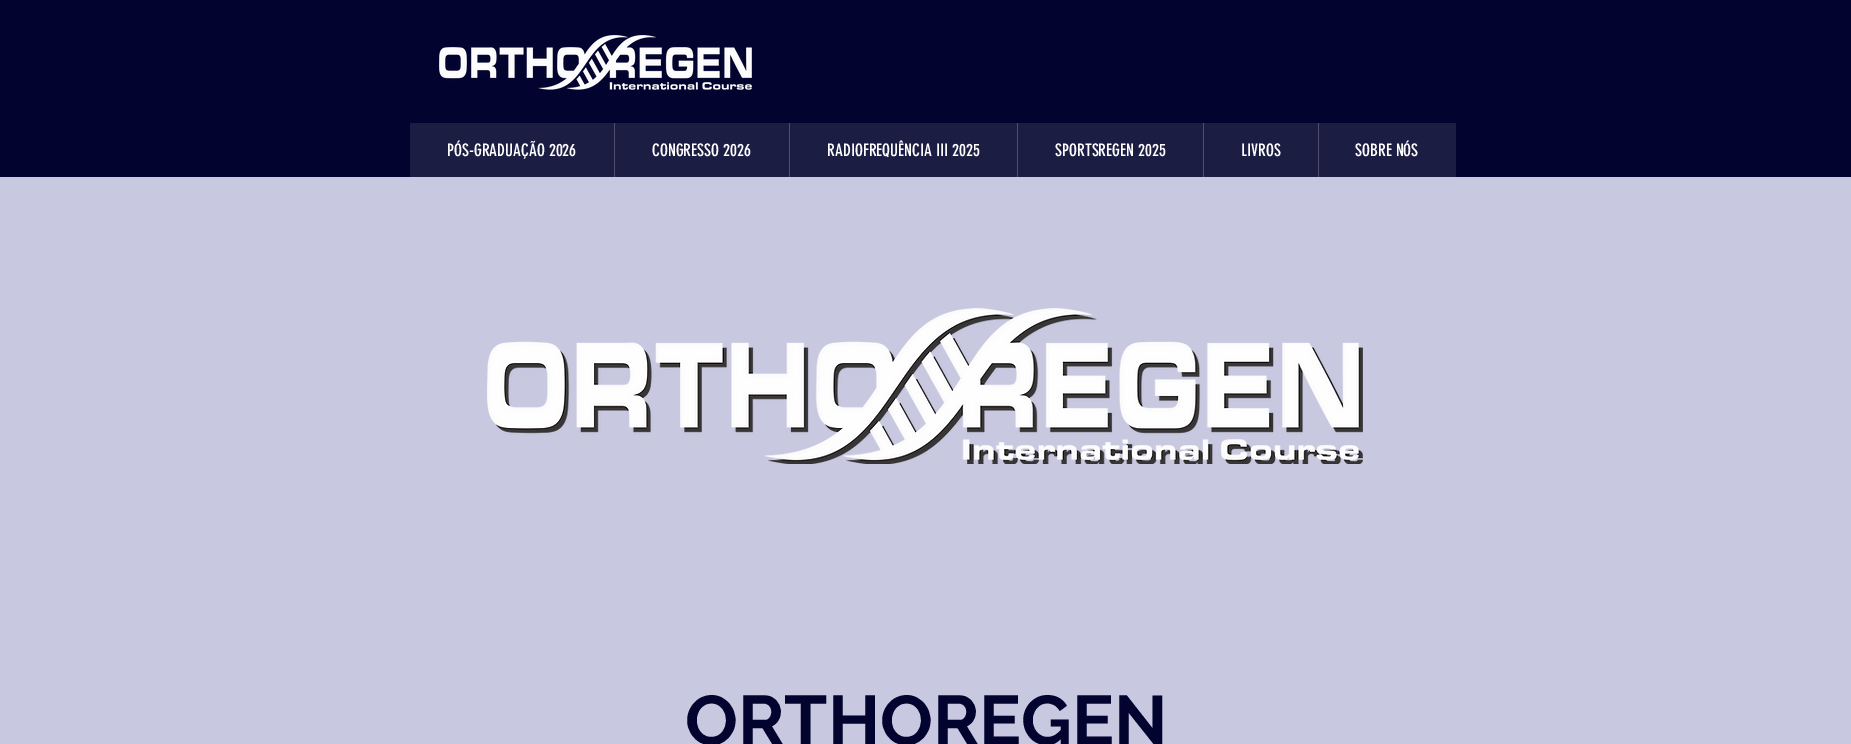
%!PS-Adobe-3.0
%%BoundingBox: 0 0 1851 744
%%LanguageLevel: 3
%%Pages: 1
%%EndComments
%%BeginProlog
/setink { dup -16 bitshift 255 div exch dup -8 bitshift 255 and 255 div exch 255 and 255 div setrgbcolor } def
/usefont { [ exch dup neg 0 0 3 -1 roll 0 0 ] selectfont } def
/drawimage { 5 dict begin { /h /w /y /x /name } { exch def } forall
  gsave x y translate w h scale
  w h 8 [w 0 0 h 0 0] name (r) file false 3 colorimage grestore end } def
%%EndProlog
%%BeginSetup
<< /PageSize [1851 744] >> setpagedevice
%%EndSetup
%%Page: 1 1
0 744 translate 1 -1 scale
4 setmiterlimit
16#C8C8E0 setink
0 0 1851 744 rectfill
16#02032E setink
0 0 1851 177 rectfill
(img1.raw) 439 35 313 55 drawimage
16#1C1D43 setink
410 123 1046 54 rectfill
/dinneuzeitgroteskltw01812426-Regular 17 usefont
16#FFFFFF setink
447 156 moveto (PÓS-GRADUAÇÃO 2026) show
16#4E4F6C setink
614 123 1 54 rectfill
16#FFFFFF setink
652 156 moveto (CONGRESSO 2026) show
16#4E4F6C setink
789 123 1 54 rectfill
16#FFFFFF setink
827 156 moveto (RADIOFREQUÊNCIA III 2025) show
16#4E4F6C setink
1017 123 1 54 rectfill
16#FFFFFF setink
1055 156 moveto (SPORTSREGEN 2025) show
16#4E4F6C setink
1203 123 1 54 rectfill
16#FFFFFF setink
1241 156 moveto (LIVROS) show
16#4E4F6C setink
1318 123 1 54 rectfill
16#FFFFFF setink
1355 156 moveto (SOBRE NÓS) show
(img2.raw) 487 308 876 156 drawimage
/Raleway-Bold 70 usefont
16#02032E setink
685 745 moveto (ORTHOREGEN) show
showpage
%%EOF
